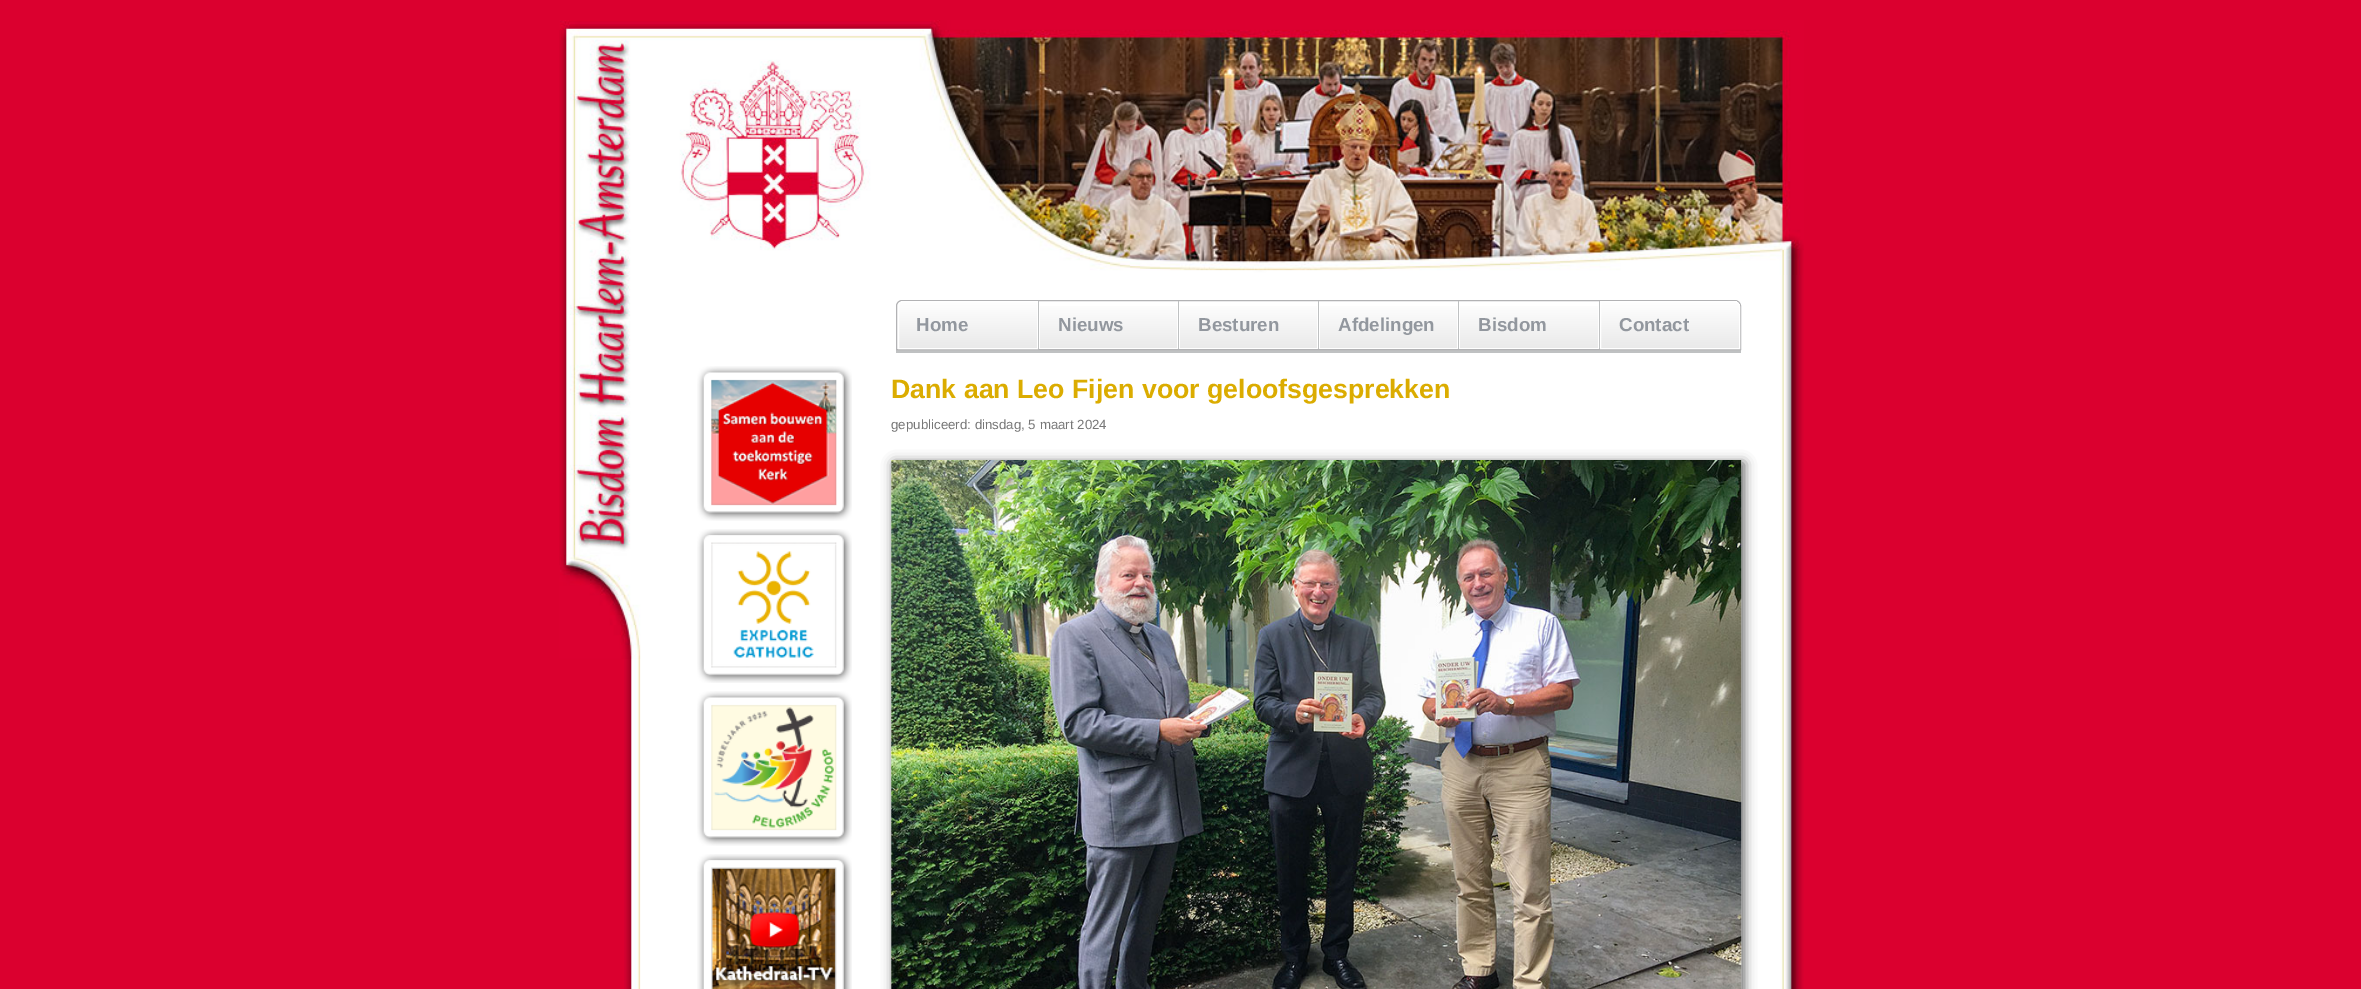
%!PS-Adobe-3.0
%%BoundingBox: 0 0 2361 989
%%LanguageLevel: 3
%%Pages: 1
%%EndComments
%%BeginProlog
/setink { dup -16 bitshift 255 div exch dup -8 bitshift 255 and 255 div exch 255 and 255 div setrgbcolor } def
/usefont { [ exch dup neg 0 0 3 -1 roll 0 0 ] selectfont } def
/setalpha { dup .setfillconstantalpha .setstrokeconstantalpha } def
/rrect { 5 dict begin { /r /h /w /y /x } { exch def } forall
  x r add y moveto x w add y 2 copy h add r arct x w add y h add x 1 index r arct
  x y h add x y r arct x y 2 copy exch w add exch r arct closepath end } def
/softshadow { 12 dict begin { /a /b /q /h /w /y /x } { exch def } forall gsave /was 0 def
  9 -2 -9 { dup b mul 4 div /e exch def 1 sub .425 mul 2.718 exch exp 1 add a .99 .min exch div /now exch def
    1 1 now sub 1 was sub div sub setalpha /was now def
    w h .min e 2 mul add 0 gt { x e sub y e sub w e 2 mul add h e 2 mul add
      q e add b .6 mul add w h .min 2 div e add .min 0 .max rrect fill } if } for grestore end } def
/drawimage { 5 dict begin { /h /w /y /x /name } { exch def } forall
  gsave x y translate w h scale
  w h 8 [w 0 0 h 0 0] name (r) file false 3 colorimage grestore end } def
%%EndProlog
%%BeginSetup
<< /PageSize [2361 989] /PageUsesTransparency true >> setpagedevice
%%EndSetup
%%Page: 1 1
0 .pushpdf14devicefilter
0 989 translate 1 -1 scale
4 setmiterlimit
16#DB002F setink
0 0 2361 989 rectfill
(img1.raw) 559 20 1245 255 drawimage
(img2.raw) 624 275 26 714 drawimage
(img3.raw) 559 275 82 384 drawimage
16#FFFFFF setink
650 275 1119 714 rectfill
16#BFC1C2 setink
896 307 moveto 896 353 lineto 1741 353 lineto 1741 350 lineto 896 350 lineto closepath fill
16#B2B2B4 setink
902 300.5 moveto 1735 300.5 lineto 1738 300.5 1740.5 303 1740.5 306 curveto 1740.5 349.5 lineto 896.5 349.5 lineto 896.5 306 lineto 896.5 303 899 300.5 902 300.5 curveto closepath stroke
gsave 904 301.5 moveto 1037.5 301.5 lineto 1037.5 348.5 lineto 898.5 348.5 lineto 898.5 307 lineto 898.5 304 901 301.5 904 301.5 curveto closepath clip newpath
<< /ShadingType 2 /ColorSpace /DeviceRGB /Coords [968 301 968 349] /Extend [true true] /Function << /FunctionType 2 /Domain [0 1] /C0 [1 1 1] /C1 [0.914 0.914 0.914] /N 1 >> >> shfill grestore
16#FFFFFF setink
904 301.5 moveto 1037.5 301.5 lineto 1037.5 348.5 lineto 898.5 348.5 lineto 898.5 307 lineto 898.5 304 901 301.5 904 301.5 curveto closepath stroke
16#BFC1C2 setink
1038 301 1 48 rectfill
/LiberationSans-Bold 18.75 usefont
16#92979E setink
916 331 moveto (Home) show
gsave 1040 306 moveto 1177 306 lineto 1177 348 lineto 1040 348 lineto closepath clip newpath
<< /ShadingType 2 /ColorSpace /DeviceRGB /Coords [1108 301 1108 349] /Extend [true true] /Function << /FunctionType 2 /Domain [0 1] /C0 [1 1 1] /C1 [0.914 0.914 0.914] /N 1 >> >> shfill grestore
16#BFC1C2 setink
1178 301 1 48 rectfill
16#92979E setink
1058 331 moveto (Nieuws) show
gsave 1180 306 moveto 1317 306 lineto 1317 348 lineto 1180 348 lineto closepath clip newpath
<< /ShadingType 2 /ColorSpace /DeviceRGB /Coords [1248 301 1248 349] /Extend [true true] /Function << /FunctionType 2 /Domain [0 1] /C0 [1 1 1] /C1 [0.914 0.914 0.914] /N 1 >> >> shfill grestore
16#BFC1C2 setink
1318 301 1 48 rectfill
16#92979E setink
1198 331 moveto (Besturen) show
gsave 1320 306 moveto 1457 306 lineto 1457 348 lineto 1320 348 lineto closepath clip newpath
<< /ShadingType 2 /ColorSpace /DeviceRGB /Coords [1388 301 1388 349] /Extend [true true] /Function << /FunctionType 2 /Domain [0 1] /C0 [1 1 1] /C1 [0.914 0.914 0.914] /N 1 >> >> shfill grestore
16#BFC1C2 setink
1458 301 1 48 rectfill
16#92979E setink
1338 331 moveto (Afdelingen) show
gsave 1460 306 moveto 1598 306 lineto 1598 348 lineto 1460 348 lineto closepath clip newpath
<< /ShadingType 2 /ColorSpace /DeviceRGB /Coords [1529 301 1529 349] /Extend [true true] /Function << /FunctionType 2 /Domain [0 1] /C0 [1 1 1] /C1 [0.914 0.914 0.914] /N 1 >> >> shfill grestore
16#BFC1C2 setink
1599 301 1 48 rectfill
16#92979E setink
1478 331 moveto (Bisdom) show
gsave 1600.5 301.5 moveto 1734 301.5 lineto 1737 301.5 1739.5 304 1739.5 307 curveto 1739.5 348.5 lineto 1600.5 348.5 lineto closepath clip newpath
<< /ShadingType 2 /ColorSpace /DeviceRGB /Coords [1670 301 1670 349] /Extend [true true] /Function << /FunctionType 2 /Domain [0 1] /C0 [1 1 1] /C1 [0.914 0.914 0.914] /N 1 >> >> shfill grestore
16#FFFFFF setink
1600.5 301.5 moveto 1734 301.5 lineto 1737 301.5 1739.5 304 1739.5 307 curveto 1739.5 348.5 lineto 1600.5 348.5 lineto closepath stroke
16#92979E setink
1619 331 moveto (Contact) show
(img4.raw) 697 366 155 155 drawimage
(img5.raw) 697 529 155 154 drawimage
(img6.raw) 697 691 155 155 drawimage
(img7.raw) 697 854 155 135 drawimage
/LiberationSans-Bold 26.7 usefont
16#DBAC00 setink
891 398 moveto (Dank aan Leo Fijen voor geloofsgesprekken) show
/LiberationSans-Regular 13.3 usefont
16#777777 setink
891 429 moveto (gepubliceerd: dinsdag, 5 maart 2024) show
16#555555 setink
894 463 850 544 0 6 1 softshadow
(img8.raw) 891 460 851 529 drawimage
(img9.raw) 1769 275 35 714 drawimage
.poppdf14devicefilter showpage
%%EOF
